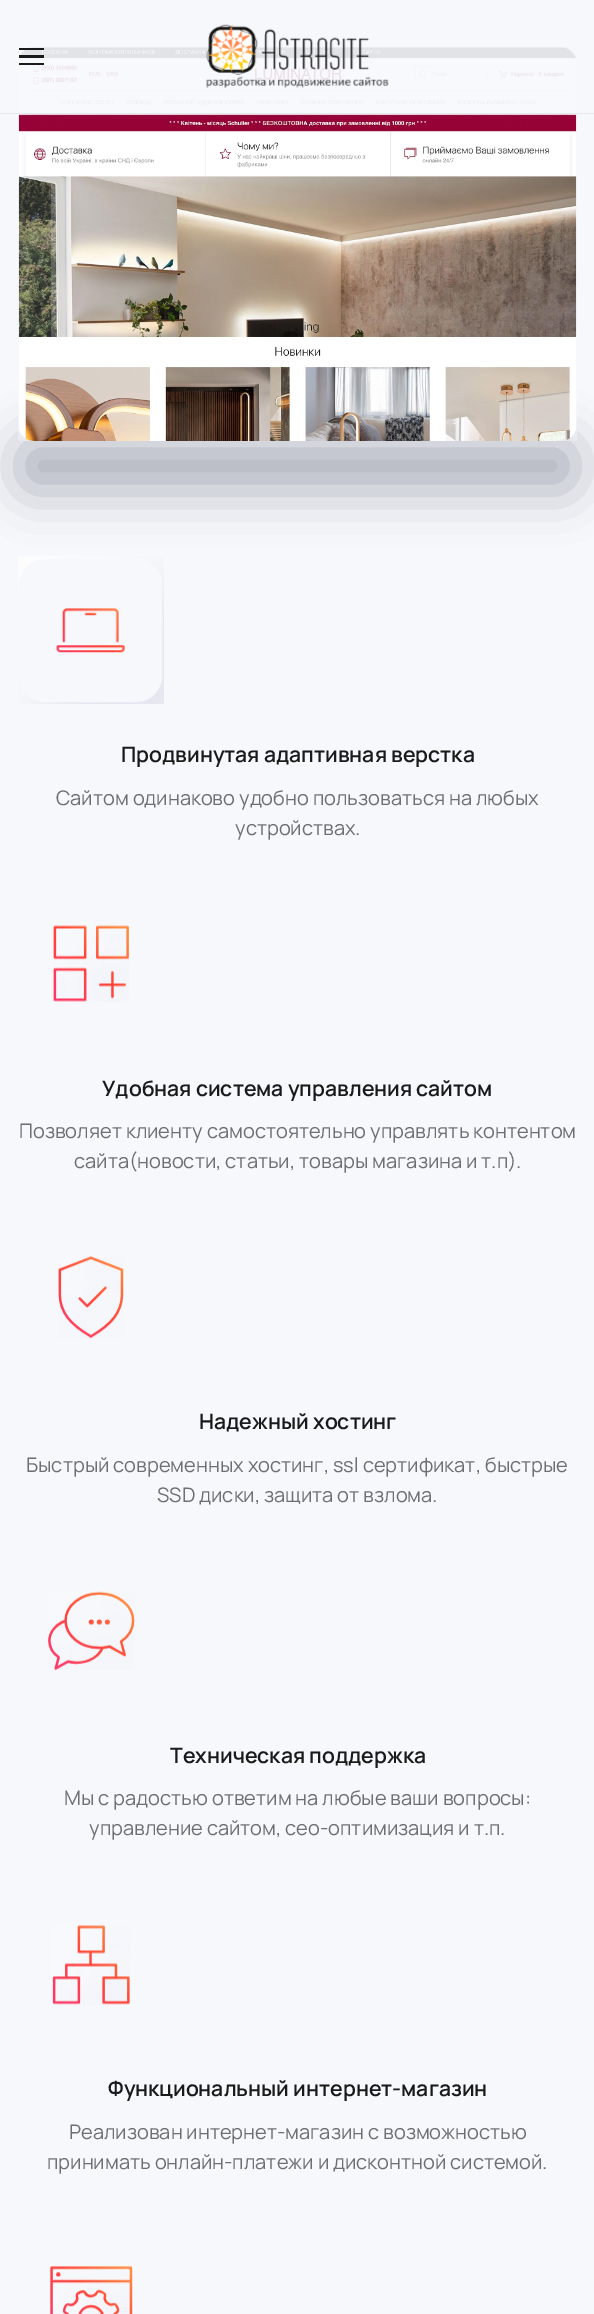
%!PS-Adobe-3.0
%%BoundingBox: 0 0 594 2314
%%LanguageLevel: 3
%%Pages: 1
%%EndComments
%%BeginProlog
/setink { dup -16 bitshift 255 div exch dup -8 bitshift 255 and 255 div exch 255 and 255 div setrgbcolor } def
/usefont { [ exch dup neg 0 0 3 -1 roll 0 0 ] selectfont } def
/setalpha { dup .setfillconstantalpha .setstrokeconstantalpha } def
/rrect { 5 dict begin { /r /h /w /y /x } { exch def } forall
  x r add y moveto x w add y 2 copy h add r arct x w add y h add x 1 index r arct
  x y h add x y r arct x y 2 copy exch w add exch r arct closepath end } def
/softshadow { 12 dict begin { /a /b /q /h /w /y /x } { exch def } forall gsave /was 0 def
  9 -2 -9 { dup b mul 4 div /e exch def 1 sub .425 mul 2.718 exch exp 1 add a .99 .min exch div /now exch def
    1 1 now sub 1 was sub div sub setalpha /was now def
    w h .min e 2 mul add 0 gt { x e sub y e sub w e 2 mul add h e 2 mul add
      q e add b .6 mul add w h .min 2 div e add .min 0 .max rrect fill } if } for grestore end } def
/drawimage { 5 dict begin { /h /w /y /x /name } { exch def } forall
  gsave x y translate w h scale
  w h 8 [w 0 0 h 0 0] name (r) file false 3 colorimage grestore end } def
%%EndProlog
%%BeginSetup
<< /PageSize [594 2314] /PageUsesTransparency true >> setpagedevice
%%EndSetup
%%Page: 1 1
0 .pushpdf14devicefilter
0 2314 translate 1 -1 scale
4 setmiterlimit
16#F7F8FC setink
0 0 594 2314 rectfill
16#31374D setink
19 441 557 50 25 25 0.35 softshadow
(img2.raw) 18 47 559 394 drawimage
0.9 setalpha
[
    [19 47 557 66 16#F7F8FC]
] { aload pop setink rectfill } forall
1 setalpha
[
    [0 113 594 1 16#E5E9ED]
    [19 48 25 2 16#1A1A1A]
    [19 55 25 3 16#1A1A1A]
    [19 63 25 2 16#1A1A1A]
] { aload pop setink rectfill } forall
(img1.raw) 206 24 183 64 drawimage
(img3.raw) 18 556 146 148 drawimage
/Manrope-SemiBold 21.25 usefont
121 762 moveto (Продвинутая адаптивная верстка) show
/Manrope-Regular 20 usefont
16#6D6F72 setink
56 805 moveto (Сайтом одинаково удобно пользоваться на любых) show
235 835 moveto (устройствах.) show
(img4.raw) 53 925 76 77 drawimage
/Manrope-SemiBold 21.25 usefont
16#1A1A1A setink
102 1096 moveto (Удобная система управления сайтом) show
/Manrope-Regular 20 usefont
16#6D6F72 setink
19 1138 moveto (Позволяет клиенту самостоятельно управлять контентом) show
74 1168 moveto (сайта\(новости, статьи, товары магазина и т.п\).) show
(img5.raw) 58 1256 66 83 drawimage
/Manrope-SemiBold 21.25 usefont
16#1A1A1A setink
199 1429 moveto (Надежный хостинг) show
/Manrope-Regular 20 usefont
16#6D6F72 setink
26 1472 moveto (Быстрый современных хостинг, ssl сертификат, быстрые) show
157 1502 moveto (SSD диски, защита от взлома.) show
(img6.raw) 48 1591 87 79 drawimage
/Manrope-SemiBold 21.25 usefont
16#1A1A1A setink
170 1763 moveto (Техническая поддержка) show
/Manrope-Regular 20 usefont
16#6D6F72 setink
64 1805 moveto (Мы с радостью ответим на любые ваши вопросы:) show
89 1835 moveto (управление сайтом, сео-оптимизация и т.п.) show
(img7.raw) 52 1925 78 80 drawimage
/Manrope-SemiBold 21.25 usefont
16#1A1A1A setink
108 2096 moveto (Функциональный интернет-магазин) show
/Manrope-Regular 20 usefont
16#6D6F72 setink
69 2139 moveto (Реализован интернет-магазин с возможностью) show
47 2169 moveto (принимать онлайн-платежи и дисконтной системой.) show
(img8.raw) 50 2266 83 48 drawimage
.poppdf14devicefilter showpage
%%EOF
